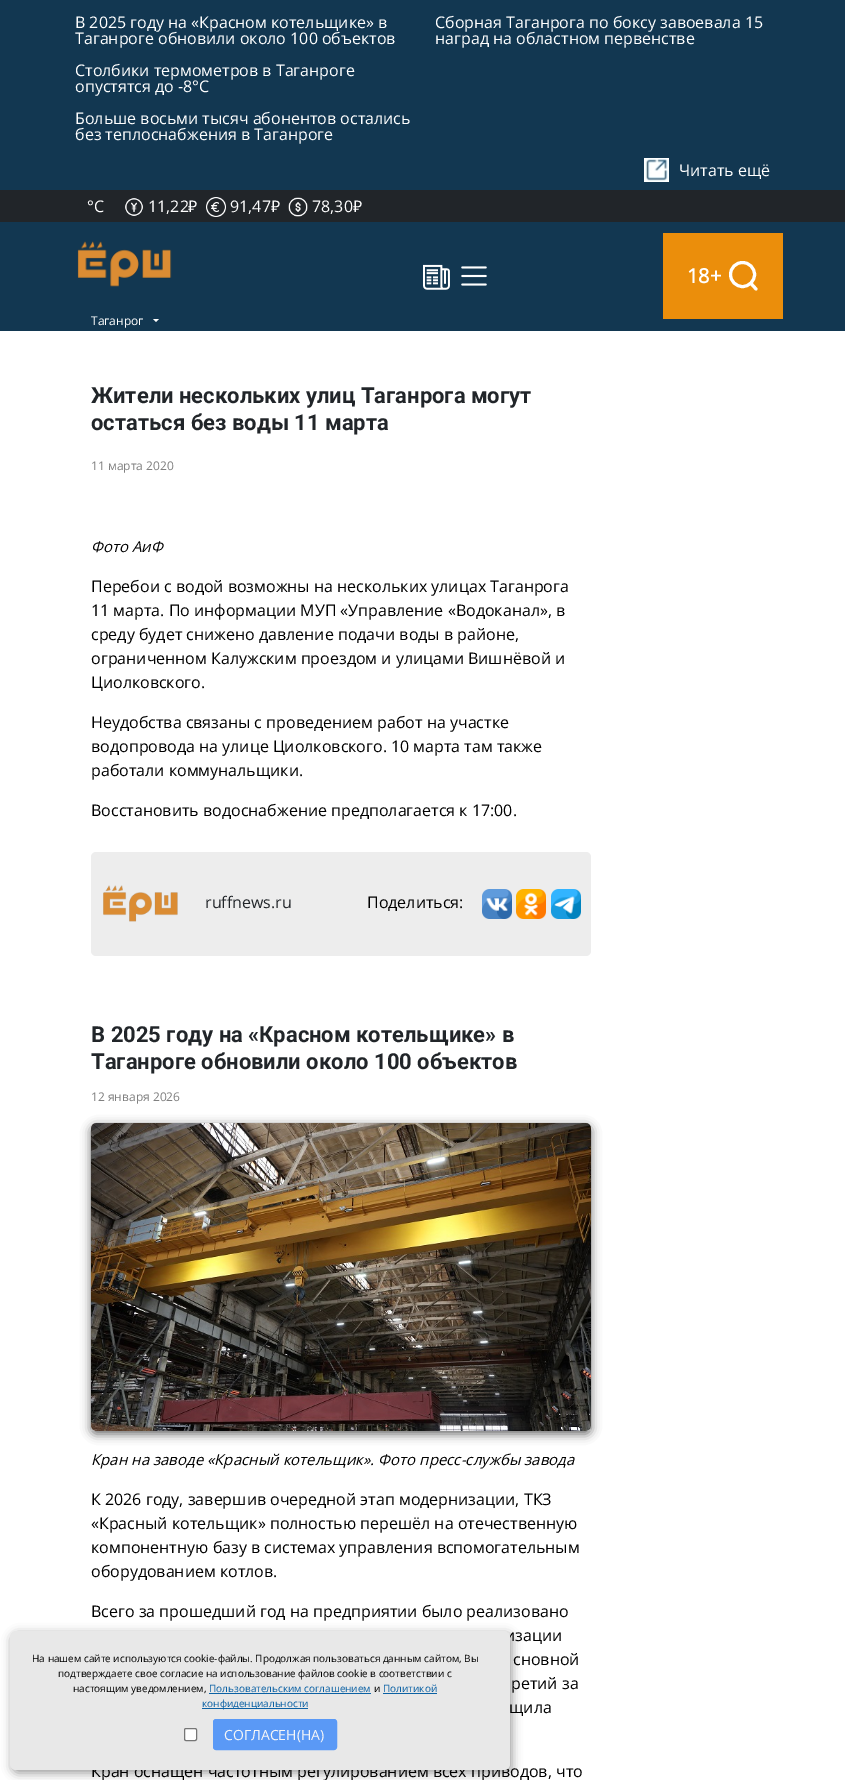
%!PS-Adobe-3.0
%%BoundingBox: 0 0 845 1780
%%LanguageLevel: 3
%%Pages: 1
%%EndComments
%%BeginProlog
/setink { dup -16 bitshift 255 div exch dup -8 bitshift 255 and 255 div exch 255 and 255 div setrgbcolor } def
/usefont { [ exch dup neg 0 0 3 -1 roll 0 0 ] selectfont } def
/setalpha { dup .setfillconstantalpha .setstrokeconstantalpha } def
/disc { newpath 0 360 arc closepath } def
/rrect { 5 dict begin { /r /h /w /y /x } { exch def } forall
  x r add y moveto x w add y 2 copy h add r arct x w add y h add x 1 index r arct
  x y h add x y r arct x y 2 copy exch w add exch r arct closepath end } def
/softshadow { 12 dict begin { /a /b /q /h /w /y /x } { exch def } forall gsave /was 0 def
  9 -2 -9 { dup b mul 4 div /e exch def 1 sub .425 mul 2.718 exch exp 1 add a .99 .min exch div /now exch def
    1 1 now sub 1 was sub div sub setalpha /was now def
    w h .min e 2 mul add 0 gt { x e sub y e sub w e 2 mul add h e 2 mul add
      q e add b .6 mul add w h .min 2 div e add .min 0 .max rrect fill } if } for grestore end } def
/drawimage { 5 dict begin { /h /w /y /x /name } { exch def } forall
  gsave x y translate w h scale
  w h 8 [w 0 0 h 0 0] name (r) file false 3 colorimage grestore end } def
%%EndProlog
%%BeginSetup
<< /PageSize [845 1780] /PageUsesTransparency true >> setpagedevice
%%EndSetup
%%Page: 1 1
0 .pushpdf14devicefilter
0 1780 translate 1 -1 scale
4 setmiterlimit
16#FFFFFF setink
0 0 845 1780 rectfill
16#123751 setink
0 0 845 190 rectfill
/OpenSans-Regular 16 usefont
16#FFFFFF setink
[
    [(В 2025 году на «Красном котельщике» в) 75 28]
    [(Таганроге обновили около 100 объектов) 75 44]
    [(Столбики термометров в Таганроге) 75 76]
    [(опустятся до -8°C) 75 92]
    [(Больше восьми тысяч абонентов остались) 75 124]
    [(без теплоснабжения в Таганроге) 75 140]
    [(Сборная Таганрога по боксу завоевала 15) 435 28]
    [(наград на областном первенстве) 435 44]
] { aload pop moveto show } forall
(img1.raw) 644 158 25 24 drawimage
679 176 moveto (Читать ещё) show
16#212529 setink
0 190 845 32 rectfill
16#FFFFFF setink
87 212 moveto (°C) show
(img2.raw) 125 198 18 18 drawimage
148 212 moveto (11,22) show
/NotoSans-Regular 16 usefont
188 212 moveto (₽) show
(img3.raw) 206 197 20 20 drawimage
/OpenSans-Regular 16 usefont
230 212 moveto (91,47) show
/NotoSans-Regular 16 usefont
271 212 moveto (₽) show
(img4.raw) 288 197 20 20 drawimage
/OpenSans-Regular 16 usefont
312 212 moveto (78,30) show
/NotoSans-Regular 16 usefont
353 212 moveto (₽) show
16#123751 setink
0 222 845 109 rectfill
(img5.raw) 423 264 27 26 drawimage
(img6.raw) 461 266 26 20 drawimage
16#EB8E0B setink
663 233 120 86 rectfill
/OpenSans-Bold 20 usefont
16#FFFFFF setink
687 283 moveto (18+) show
3 setlinewidth
742.5 274.5 12 disc stroke
1 setlinecap
1 setlinejoin
751 283.5 moveto 756 289 lineto stroke
(img7.raw) 77 241 95 46 drawimage
/OpenSans-Regular 12 usefont
91 325 moveto (Таганрог) show
153 319 moveto 159 319 lineto 156 322 lineto closepath fill
/Roboto-Bold 22 usefont
16#212529 setink
91 403 moveto (Жители нескольких улиц Таганрога могут) show
91 430 moveto (остаться без воды 11 марта) show
/OpenSans-Regular 12 usefont
16#808080 setink
91 470 moveto (11 марта 2020) show
/OpenSans-Italic 15 usefont
16#000000 setink
91 552 moveto (Фото АиФ) show
/OpenSans-Regular 16 usefont
[
    [(Перебои с водой возможны на нескольких улицах Таганрога) 91 592]
    [(11 марта. По информации МУП «Управление «Водоканал», в) 91 616]
    [(среду будет снижено давление подачи воды в районе,) 91 640]
    [(ограниченном Калужским проездом и улицами Вишнёвой и) 91 664]
    [(Циолковского.) 91 688]
    [(Неудобства связаны с проведением работ на участке) 91 728]
    [(водопровода на улице Циолковского. 10 марта там также) 91 752]
    [(работали коммунальщики.) 91 776]
    [(Восстановить водоснабжение предполагается к 17:00.) 91 816]
] { aload pop moveto show } forall
16#EDEDED setink
91 852 500 104 5 rrect fill
(img8.raw) 103 885 75 37 drawimage
16#212529 setink
205 908 moveto (ruffnews.ru) show
16#000000 setink
367 908 moveto (Поделиться:) show
(img9.raw) 482 889 30 30 drawimage
(img10.raw) 516 889 30 30 drawimage
(img11.raw) 551 889 30 30 drawimage
/Roboto-Bold 22 usefont
16#212529 setink
91 1042 moveto (В 2025 году на «Красном котельщике» в) show
91 1069 moveto (Таганроге обновили около 100 объектов) show
/OpenSans-Regular 12 usefont
16#808080 setink
91 1101 moveto (12 января 2026) show
16#323232 setink
91 1126 500 308 5 5 0.75 softshadow
(img12.raw) 91 1123 500 308 drawimage
/OpenSans-Italic 15 usefont
16#000000 setink
91 1465 moveto (Кран на заводе «Красный котельщик». Фото пресс-службы завода) show
/OpenSans-Regular 16 usefont
[
    [(К 2026 году, завершив очередной этап модернизации, ТКЗ) 91 1505]
    [(«Красный котельщик» полностью перешёл на отечественную) 91 1529]
    [(компонентную базу в системах управления вспомогательным) 91 1553]
    [(оборудованием котлов.) 91 1577]
    [(Всего за прошедший год на предприятии было реализовано) 91 1617]
    [(изации) 505 1641]
    [(сновной) 513 1665]
    [(ретий за) 511 1689]
    [(щила) 509 1713]
    [(Кран оснащён частотным регулированием всех приводов, что) 91 1777]
] { aload pop moveto show } forall
12 1634 500 139 6 5 0.4 softshadow
16#E8E8E8 setink
10 1631 500 139 6 rrect fill
/OpenSans-Regular 10 usefont
16#000000 setink
[
    [(На нашем сайте используются cookie-файлы. Продолжая пользоваться данным сайтом, Вы) 32 1662]
    [(подтверждаете свое согласие на использование файлов cookie в соответствии с) 58 1677]
    [(настоящим уведомлением,) 73 1692]
] { aload pop moveto show } forall
16#0B61A4 setink
209 1692 moveto (Пользовательским соглашением) show
209 1693 162 1 rectfill
16#000000 setink
374 1692 moveto (и) show
16#0B61A4 setink
383 1692 moveto (Политикой) show
383 1693 54 1 rectfill
202 1708 106 1 rectfill
202 1707 moveto (конфиденциальности) show
16#FFFFFF setink
184.5 1728.5 12 12 1.5 rrect gsave fill grestore
16#767676 setink
1 setlinewidth
0 setlinecap
0 setlinejoin
stroke
16#5A99F6 setink
213.5 1719.5 123 30 2.5 rrect gsave fill grestore
stroke
/OpenSans-Regular 14 usefont
16#F7F7F7 setink
224 1740 moveto (СОГЛАСЕН\(НА\)) show
.poppdf14devicefilter showpage
%%EOF
